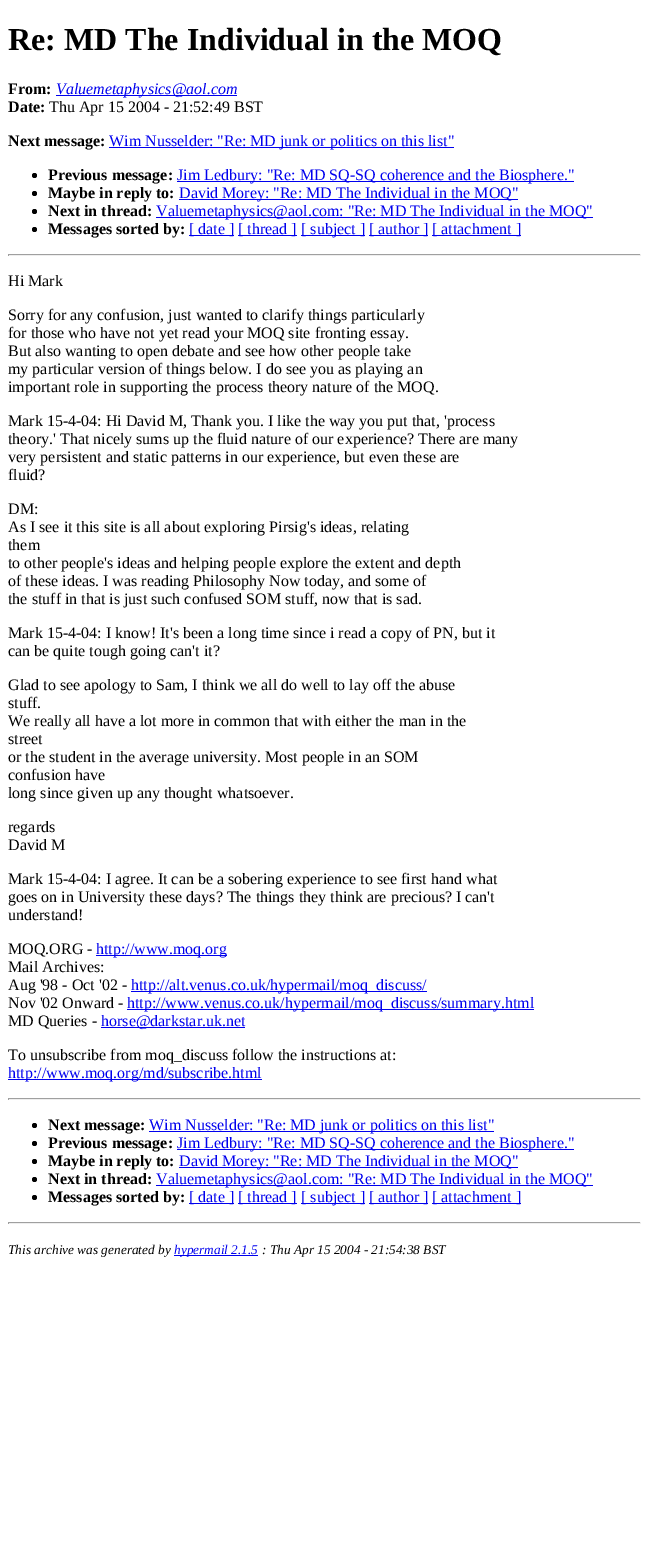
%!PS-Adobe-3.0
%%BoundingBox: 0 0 649 1542
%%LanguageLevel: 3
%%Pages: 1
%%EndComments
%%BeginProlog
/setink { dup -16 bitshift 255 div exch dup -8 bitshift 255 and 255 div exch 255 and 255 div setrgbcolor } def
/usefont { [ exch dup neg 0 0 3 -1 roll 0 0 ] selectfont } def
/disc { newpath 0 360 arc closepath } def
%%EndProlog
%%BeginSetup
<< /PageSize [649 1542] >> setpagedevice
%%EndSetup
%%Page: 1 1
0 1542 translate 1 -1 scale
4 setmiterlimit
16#FFFFFF setink
0 0 649 1542 rectfill
/LiberationSerif-Bold 32 usefont
16#000000 setink
8 50 moveto (Re: MD The Individual in the MOQ) show
/LiberationSerif-Bold 16 usefont
8 94 moveto (From:) show
16#0000EE setink
56 95 181 1 rectfill
/LiberationSerif-Italic 16 usefont
56 94 moveto (Valuemetaphysics@aol.com) show
/LiberationSerif-Bold 16 usefont
16#000000 setink
8 112 moveto (Date:) show
/LiberationSerif-Regular 16 usefont
49 112 moveto (Thu Apr 15 2004 - 21:52:49 BST) show
/LiberationSerif-Bold 16 usefont
8 146 moveto (Next message:) show
16#0000EE setink
109 147 345 1 rectfill
/LiberationSerif-Regular 16 usefont
109 146 moveto (Wim Nusselder: "Re: MD junk or politics on this list") show
16#000000 setink
34.5 175.5 2.5 disc fill
/LiberationSerif-Bold 16 usefont
48 180 moveto (Previous message:) show
16#0000EE setink
177 181 397 1 rectfill
/LiberationSerif-Regular 16 usefont
177 180 moveto (Jim Ledbury: "Re: MD SQ-SQ coherence and the Biosphere.") show
16#000000 setink
34.5 193.5 2.5 disc fill
/LiberationSerif-Bold 16 usefont
48 198 moveto (Maybe in reply to:) show
16#0000EE setink
179 199 339 1 rectfill
/LiberationSerif-Regular 16 usefont
179 198 moveto (David Morey: "Re: MD The Individual in the MOQ") show
16#000000 setink
34.5 211.5 2.5 disc fill
/LiberationSerif-Bold 16 usefont
48 216 moveto (Next in thread:) show
16#0000EE setink
156 217 437 1 rectfill
/LiberationSerif-Regular 16 usefont
156 216 moveto (Valuemetaphysics@aol.com: "Re: MD The Individual in the MOQ") show
16#000000 setink
34.5 229.5 2.5 disc fill
/LiberationSerif-Bold 16 usefont
48 234 moveto (Messages sorted by:) show
16#0000EE setink
189 235 45 1 rectfill
/LiberationSerif-Regular 16 usefont
189 234 moveto ([ date ]) show
238 235 59 1 rectfill
238 234 moveto ([ thread ]) show
301 235 64 1 rectfill
301 234 moveto ([ subject ]) show
369 235 59 1 rectfill
369 234 moveto ([ author ]) show
432 235 89 1 rectfill
432 234 moveto ([ attachment ]) show
[
    [8 254 633 1 16#9F9F9F]
    [640 254 1 2 16#EEEEEE]
    [8 255 633 1 16#EEEEEE]
    [8 254 1 2 16#9F9F9F]
] { aload pop setink rectfill } forall
16#000000 setink
[
    [(Hi Mark) 8 286]
    [(Sorry for any confusion, just wanted to clarify things particularly) 8 320]
    [(for those who have not yet read your MOQ site fronting essay.) 8 338]
    [(But also wanting to open debate and see how other people take) 8 356]
    [(my particular version of things below. I do see you as playing an) 8 374]
    [(important role in supporting the process theory nature of the MOQ.) 8 392]
    [(Mark 15-4-04: Hi David M, Thank you. I like the way you put that, 'process) 8 426]
    [(theory.' That nicely sums up the fluid nature of our experience? There are many) 8 444]
    [(very persistent and static patterns in our experience, but even these are) 8 462]
    [(fluid?) 8 480]
    [(DM:) 8 514]
    [(As I see it this site is all about exploring Pirsig's ideas, relating) 8 532]
    [(them) 8 550]
    [(to other people's ideas and helping people explore the extent and depth) 8 568]
    [(of these ideas. I was reading Philosophy Now today, and some of) 8 586]
    [(the stuff in that is just such confused SOM stuff, now that is sad.) 8 604]
    [(Mark 15-4-04: I know! It's been a long time since i read a copy of PN, but it) 8 638]
    [(can be quite tough going can't it?) 8 656]
    [(Glad to see apology to Sam, I think we all do well to lay off the abuse) 8 690]
    [(stuff.) 8 708]
    [(We really all have a lot more in common that with either the man in the) 8 726]
    [(street) 8 744]
    [(or the student in the average university. Most people in an SOM) 8 762]
    [(confusion have) 8 780]
    [(long since given up any thought whatsoever.) 8 798]
    [(regards) 8 832]
    [(David M) 8 850]
    [(Mark 15-4-04: I agree. It can be a sobering experience to see first hand what) 8 884]
    [(goes on in University these days? The things they think are precious? I can't) 8 902]
    [(understand!) 8 920]
    [(MOQ.ORG -) 8 954]
] { aload pop moveto show } forall
16#0000EE setink
96 955 131 1 rectfill
96 954 moveto (http://www.moq.org) show
16#000000 setink
8 972 moveto (Mail Archives:) show
8 990 moveto (Aug '98 - Oct '02 -) show
16#0000EE setink
131 991 296 1 rectfill
131 990 moveto (http://alt.venus.co.uk/hypermail/moq_discuss/) show
16#000000 setink
8 1008 moveto (Nov '02 Onward -) show
16#0000EE setink
127 1009 407 1 rectfill
127 1008 moveto (http://www.venus.co.uk/hypermail/moq_discuss/summary.html) show
16#000000 setink
8 1026 moveto (MD Queries -) show
16#0000EE setink
101 1027 144 1 rectfill
101 1026 moveto (horse@darkstar.uk.net) show
16#000000 setink
8 1060 moveto (To unsubscribe from moq_discuss follow the instructions at:) show
16#0000EE setink
8 1079 254 1 rectfill
8 1078 moveto (http://www.moq.org/md/subscribe.html) show
[
    [8 1098 633 1 16#9F9F9F]
    [640 1098 1 2 16#EEEEEE]
    [8 1099 633 1 16#EEEEEE]
    [8 1098 1 2 16#9F9F9F]
] { aload pop setink rectfill } forall
16#000000 setink
34.5 1125.5 2.5 disc fill
/LiberationSerif-Bold 16 usefont
48 1130 moveto (Next message:) show
16#0000EE setink
149 1131 345 1 rectfill
/LiberationSerif-Regular 16 usefont
149 1130 moveto (Wim Nusselder: "Re: MD junk or politics on this list") show
16#000000 setink
34.5 1143.5 2.5 disc fill
/LiberationSerif-Bold 16 usefont
48 1148 moveto (Previous message:) show
16#0000EE setink
177 1149 397 1 rectfill
/LiberationSerif-Regular 16 usefont
177 1148 moveto (Jim Ledbury: "Re: MD SQ-SQ coherence and the Biosphere.") show
16#000000 setink
34.5 1161.5 2.5 disc fill
/LiberationSerif-Bold 16 usefont
48 1166 moveto (Maybe in reply to:) show
16#0000EE setink
179 1167 339 1 rectfill
/LiberationSerif-Regular 16 usefont
179 1166 moveto (David Morey: "Re: MD The Individual in the MOQ") show
16#000000 setink
34.5 1179.5 2.5 disc fill
/LiberationSerif-Bold 16 usefont
48 1184 moveto (Next in thread:) show
16#0000EE setink
156 1185 437 1 rectfill
/LiberationSerif-Regular 16 usefont
156 1184 moveto (Valuemetaphysics@aol.com: "Re: MD The Individual in the MOQ") show
16#000000 setink
34.5 1197.5 2.5 disc fill
/LiberationSerif-Bold 16 usefont
48 1202 moveto (Messages sorted by:) show
16#0000EE setink
189 1203 45 1 rectfill
/LiberationSerif-Regular 16 usefont
189 1202 moveto ([ date ]) show
238 1203 59 1 rectfill
238 1202 moveto ([ thread ]) show
301 1203 64 1 rectfill
301 1202 moveto ([ subject ]) show
369 1203 59 1 rectfill
369 1202 moveto ([ author ]) show
432 1203 89 1 rectfill
432 1202 moveto ([ attachment ]) show
[
    [8 1222 633 1 16#9F9F9F]
    [640 1222 1 2 16#EEEEEE]
    [8 1223 633 1 16#EEEEEE]
    [8 1222 1 2 16#9F9F9F]
] { aload pop setink rectfill } forall
/LiberationSerif-Italic 13.3 usefont
16#000000 setink
8 1254 moveto (This archive was generated by) show
16#0000EE setink
174 1255 84 1 rectfill
174 1254 moveto (hypermail 2.1.5) show
16#000000 setink
262 1254 moveto (: Thu Apr 15 2004 - 21:54:38 BST) show
showpage
%%EOF
